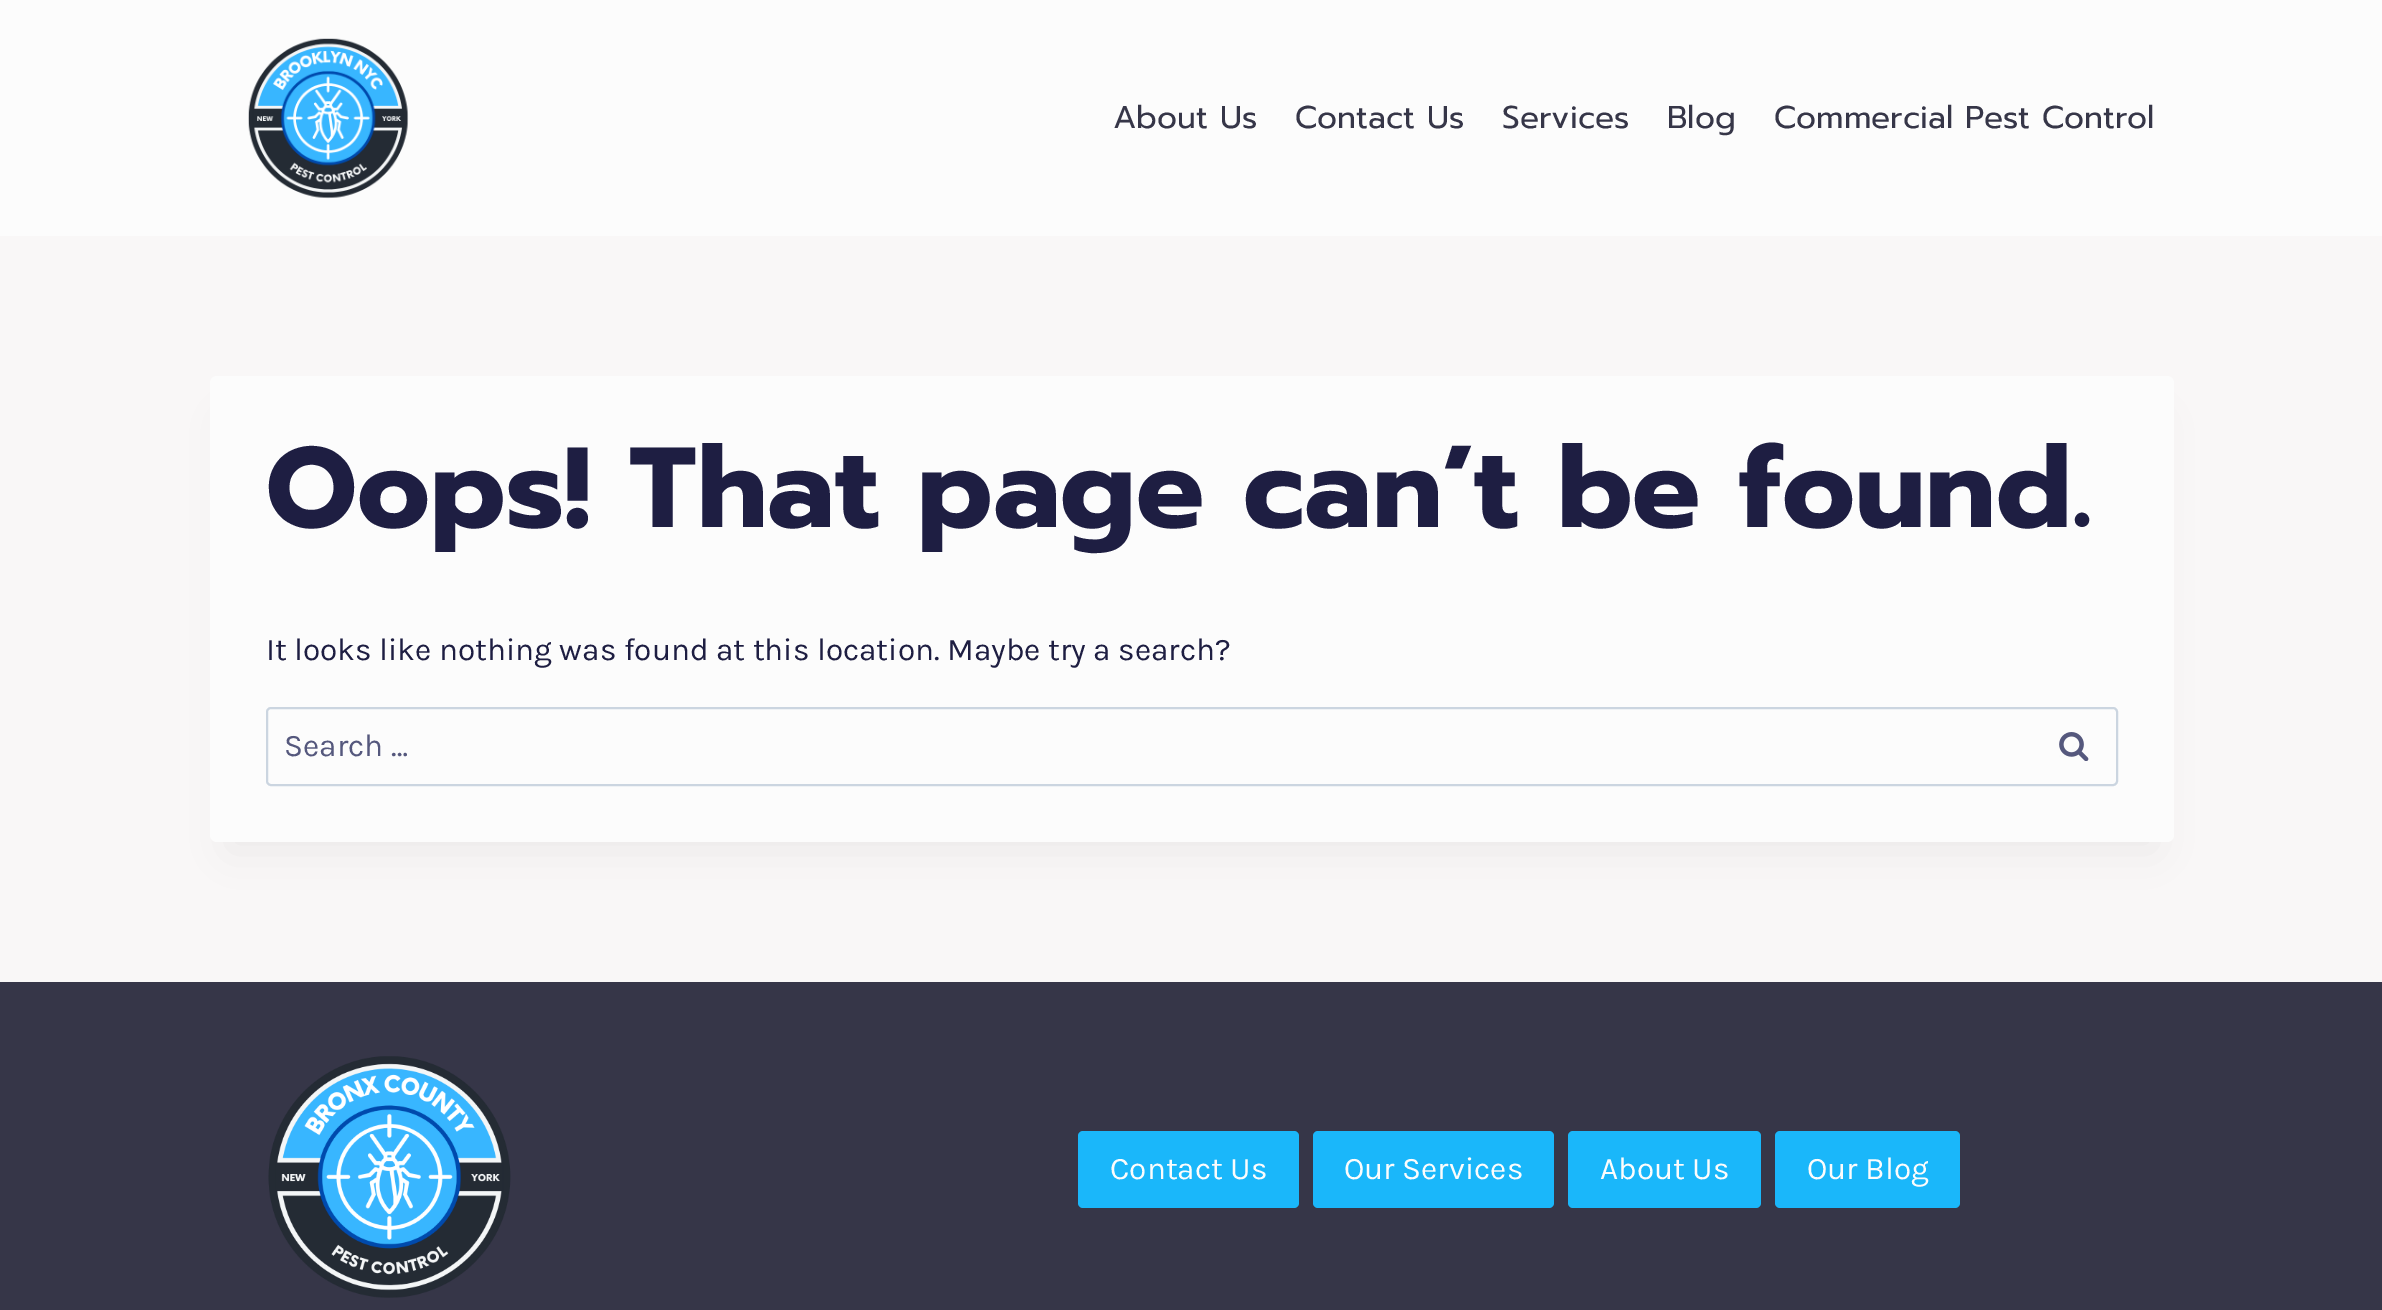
%!PS-Adobe-3.0
%%BoundingBox: 0 0 2382 1310
%%LanguageLevel: 3
%%Pages: 1
%%EndComments
%%BeginProlog
/setink { dup -16 bitshift 255 div exch dup -8 bitshift 255 and 255 div exch 255 and 255 div setrgbcolor } def
/usefont { [ exch dup neg 0 0 3 -1 roll 0 0 ] selectfont } def
/setalpha { dup .setfillconstantalpha .setstrokeconstantalpha } def
/rrect { 5 dict begin { /r /h /w /y /x } { exch def } forall
  x r add y moveto x w add y 2 copy h add r arct x w add y h add x 1 index r arct
  x y h add x y r arct x y 2 copy exch w add exch r arct closepath end } def
/softshadow { 12 dict begin { /a /b /q /h /w /y /x } { exch def } forall gsave /was 0 def
  9 -2 -9 { dup b mul 4 div /e exch def 1 sub .425 mul 2.718 exch exp 1 add a .99 .min exch div /now exch def
    1 1 now sub 1 was sub div sub setalpha /was now def
    w h .min e 2 mul add 0 gt { x e sub y e sub w e 2 mul add h e 2 mul add
      q e add b .6 mul add w h .min 2 div e add .min 0 .max rrect fill } if } for grestore end } def
/drawimage { 5 dict begin { /h /w /y /x /name } { exch def } forall
  gsave x y translate w h scale
  w h 8 [w 0 0 h 0 0] name (r) file false 3 colorimage grestore end } def
%%EndProlog
%%BeginSetup
<< /PageSize [2382 1310] /PageUsesTransparency true >> setpagedevice
%%EndSetup
%%Page: 1 1
0 .pushpdf14devicefilter
0 1310 translate 1 -1 scale
4 setmiterlimit
16#F9F7F7 setink
0 0 2382 1310 rectfill
16#FCFCFC setink
0 0 2382 236 rectfill
(img1.raw) 248 38 161 161 drawimage
/Prompt-Regular 31.5 usefont
16#363648 setink
[
    [(About Us) 1113 128]
    [(Contact Us) 1295 128]
    [(Services) 1502 128]
    [(Blog) 1667 128]
    [(Commercial Pest Control) 1774 128]
] { aload pop moveto show } forall
16#000000 setink
228 420 1928 431 0 22 0.05 softshadow
16#FCFCFC setink
210 376 1964 466 7 rrect fill
/Prompt-Bold 113.75 usefont
16#1E1E42 setink
266 527 moveto (Oops! That page can’t be found.) show
/Karla-Regular 31.5 usefont
266 660 moveto (It looks like nothing was found at this location. Maybe try a search?) show
16#CBD5E0 setink
2 setlinewidth
267 708 1850 77 4 rrect stroke
16#55587D setink
284 756 moveto (Search …) show
(img2.raw) 2059 732 30 29 drawimage
16#363648 setink
0 982 2382 328 rectfill
(img3.raw) 268 1056 243 242 drawimage
16#1AB7FA setink
1078 1131 221 77 5 rrect fill
16#FCFCFC setink
1110 1179 moveto (Contact Us) show
16#1AB7FA setink
1313 1131 241 77 5 rrect fill
16#FCFCFC setink
1344 1179 moveto (Our Services) show
16#1AB7FA setink
1568 1131 193 77 5 rrect fill
16#FCFCFC setink
1600 1179 moveto (About Us) show
16#1AB7FA setink
1775 1131 185 77 5 rrect fill
16#FCFCFC setink
1807 1179 moveto (Our Blog) show
.poppdf14devicefilter showpage
%%EOF
